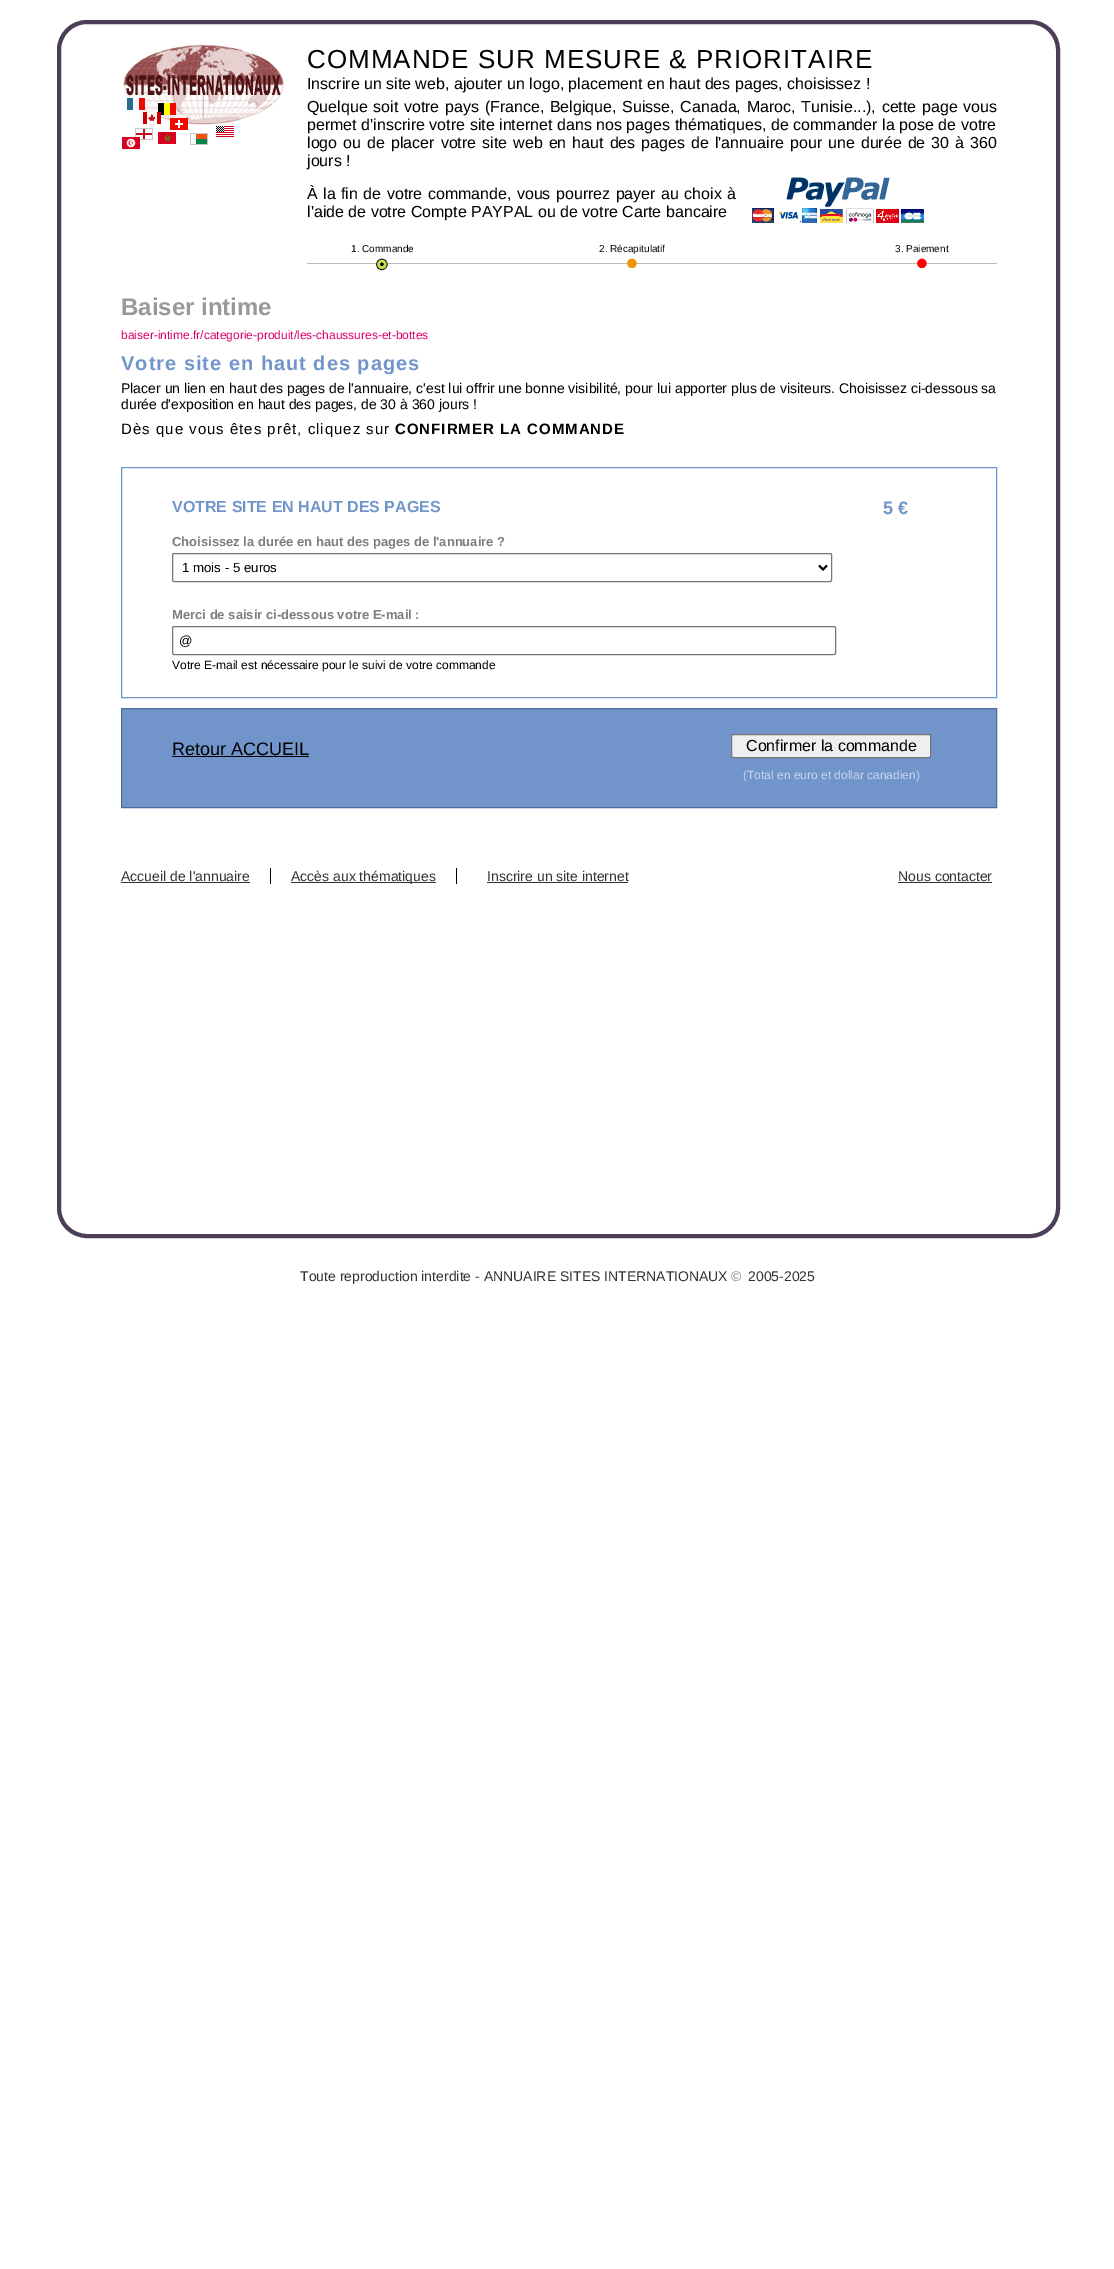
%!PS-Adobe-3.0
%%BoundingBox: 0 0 1114 2269
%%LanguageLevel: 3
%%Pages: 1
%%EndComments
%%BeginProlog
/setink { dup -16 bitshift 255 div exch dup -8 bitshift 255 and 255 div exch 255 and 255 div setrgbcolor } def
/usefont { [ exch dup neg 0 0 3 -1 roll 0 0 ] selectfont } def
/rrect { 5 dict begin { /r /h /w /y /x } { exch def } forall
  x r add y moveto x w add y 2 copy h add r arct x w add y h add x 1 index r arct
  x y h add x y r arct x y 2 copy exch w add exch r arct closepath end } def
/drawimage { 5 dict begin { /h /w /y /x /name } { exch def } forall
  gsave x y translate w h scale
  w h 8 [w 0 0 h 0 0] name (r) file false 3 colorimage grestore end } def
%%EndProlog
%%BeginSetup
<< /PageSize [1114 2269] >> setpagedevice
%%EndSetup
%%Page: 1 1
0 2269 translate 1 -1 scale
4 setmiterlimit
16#FFFFFF setink
0 0 1114 2269 rectfill
16#4B3E56 setink
4 setlinewidth
59 22 999 1214 28 rrect stroke
(img1.raw) 122 44 162 105 drawimage
/LiberationSans-Regular 26 usefont
16#000000 setink
307 68 moveto 1 0 (COMMANDE SUR MESURE & PRIORITAIRE) ashow
/LiberationSans-Regular 16 usefont
307 89 moveto (Inscrire un site web, ajouter un logo, placement en haut des pages, choisissez !) show
307 112 moveto 1.25 0 32 (Quelque soit votre pays \(France, Belgique, Suisse, Canada, Maroc, Tunisie...\), cette page vous) widthshow
307 130 moveto 0.1 0 32 (permet d'inscrire votre site internet dans nos pages thématiques, de commander la pose de votre) widthshow
307 148 moveto 1.6 0 32 (logo ou de placer votre site web en haut des pages de l'annuaire pour une durée de 30 à 360) widthshow
307 166 moveto (jours !) show
307 199 moveto 1 0 32 (À la fin de votre commande, vous pourrez payer au choix à) widthshow
307 217 moveto (l'aide de votre Compte PAYPAL ou de votre Carte bancaire) show
(img2.raw) 752 177 172 46 drawimage
16#BBBBBB setink
307 263 690 1 rectfill
(img3.raw) 376 258 12 13 drawimage
/LiberationSans-Regular 10 usefont
16#000000 setink
351 252 moveto (1. Commande) show
(img4.raw) 627 258 10 10 drawimage
599 252 moveto (2. Récapitulatif) show
(img5.raw) 917 258 10 11 drawimage
895 252 moveto (3. Paiement) show
/LiberationSans-Bold 24 usefont
16#999999 setink
121 315 moveto (Baiser intime) show
/LiberationSans-Regular 12 usefont
16#DC0369 setink
121 339 moveto (baiser-intime.fr/categorie-produit/les-chaussures-et-bottes) show
/LiberationSans-Bold 20 usefont
16#7195CA setink
121 370 moveto 1 0 (Votre site en haut des pages) ashow
/LiberationSans-Regular 14 usefont
16#000000 setink
121 393 moveto (Placer un lien en haut des pages de l'annuaire, c'est lui offrir une bonne visibilité, pour lui apporter plus de visiteurs. Choisissez ci-dessous sa) show
121 409 moveto (durée d'exposition en haut des pages, de 30 à 360 jours !) show
/LiberationSans-Regular 15 usefont
121 434 moveto 1 0 (Dès que vous êtes prêt, cliquez sur) ashow
/LiberationSans-Bold 15 usefont
395 434 moveto 1 0 (CONFIRMER LA COMMANDE) ashow
16#7195CA setink
1 setlinewidth
121.5 467.5 875 230 rectstroke
/LiberationSans-Bold 16 usefont
172 512 moveto (VOTRE SITE EN HAUT DES PAGES) show
/LiberationSans-Bold 18 usefont
883 514 moveto (5 €) show
/LiberationSans-Bold 13 usefont
16#7B7E83 setink
172 546 moveto (Choisissez la durée en haut des pages de l'annuaire ?) show
16#767676 setink
172.5 553.5 659 28 1.5 rrect stroke
16#000000 setink
2 setlinewidth
819 565.5 moveto 823 569.5 lineto 827 565.5 lineto stroke
/LiberationSans-Regular 13.25 usefont
182 572 moveto (1 mois - 5 euros) show
/LiberationSans-Bold 13 usefont
16#7B7E83 setink
172 619 moveto (Merci de saisir ci-dessous votre E-mail :) show
16#767676 setink
1 setlinewidth
172.5 626.5 663 28 1.5 rrect stroke
/LiberationSans-Regular 13.25 usefont
16#000000 setink
179 645 moveto (@) show
/LiberationSans-Regular 12 usefont
172 669 moveto (Votre E-mail est nécessaire pour le suivi de votre commande) show
16#7195CA setink
121.5 708.5 moveto 996.5 708.5 lineto 996.5 807.5 lineto 121.5 807.5 lineto closepath gsave fill grestore
16#4D6C9A setink
stroke
/LiberationSans-Regular 18 usefont
16#000000 setink
172 755 moveto (Retour ACCUEIL) show
172 756 137 1 rectfill
16#EFEFEF setink
731.5 734.5 199 23 1.5 rrect gsave fill grestore
16#767676 setink
stroke
/LiberationSans-Regular 16 usefont
16#000000 setink
746 751 moveto (Confirmer la commande) show
/LiberationSans-Regular 12 usefont
16#C7D6EC setink
743 779 moveto (\(Total en euro et dollar canadien\)) show
16#000000 setink
270 868 1 16 rectfill
/LiberationSans-Regular 14 usefont
16#333333 setink
121 881 moveto (Accueil de l'annuaire) show
[
    [121 882 129 1 16#333333]
    [456 868 1 16 16#000000]
    [291 882 145 1 16#333333]
] { aload pop setink rectfill } forall
291 881 moveto (Accès aux thématiques) show
487 881 moveto (Inscrire un site internet) show
487 882 141 1 rectfill
898 881 moveto (Nous contacter) show
898 882 94 1 rectfill
300 1281 moveto (Toute reproduction interdite - ANNUAIRE SITES INTERNATIONAUX) show
16#888888 setink
731 1281 moveto 1 0 (©) ashow
16#333333 setink
748 1281 moveto (2005-2025) show
showpage
%%EOF
